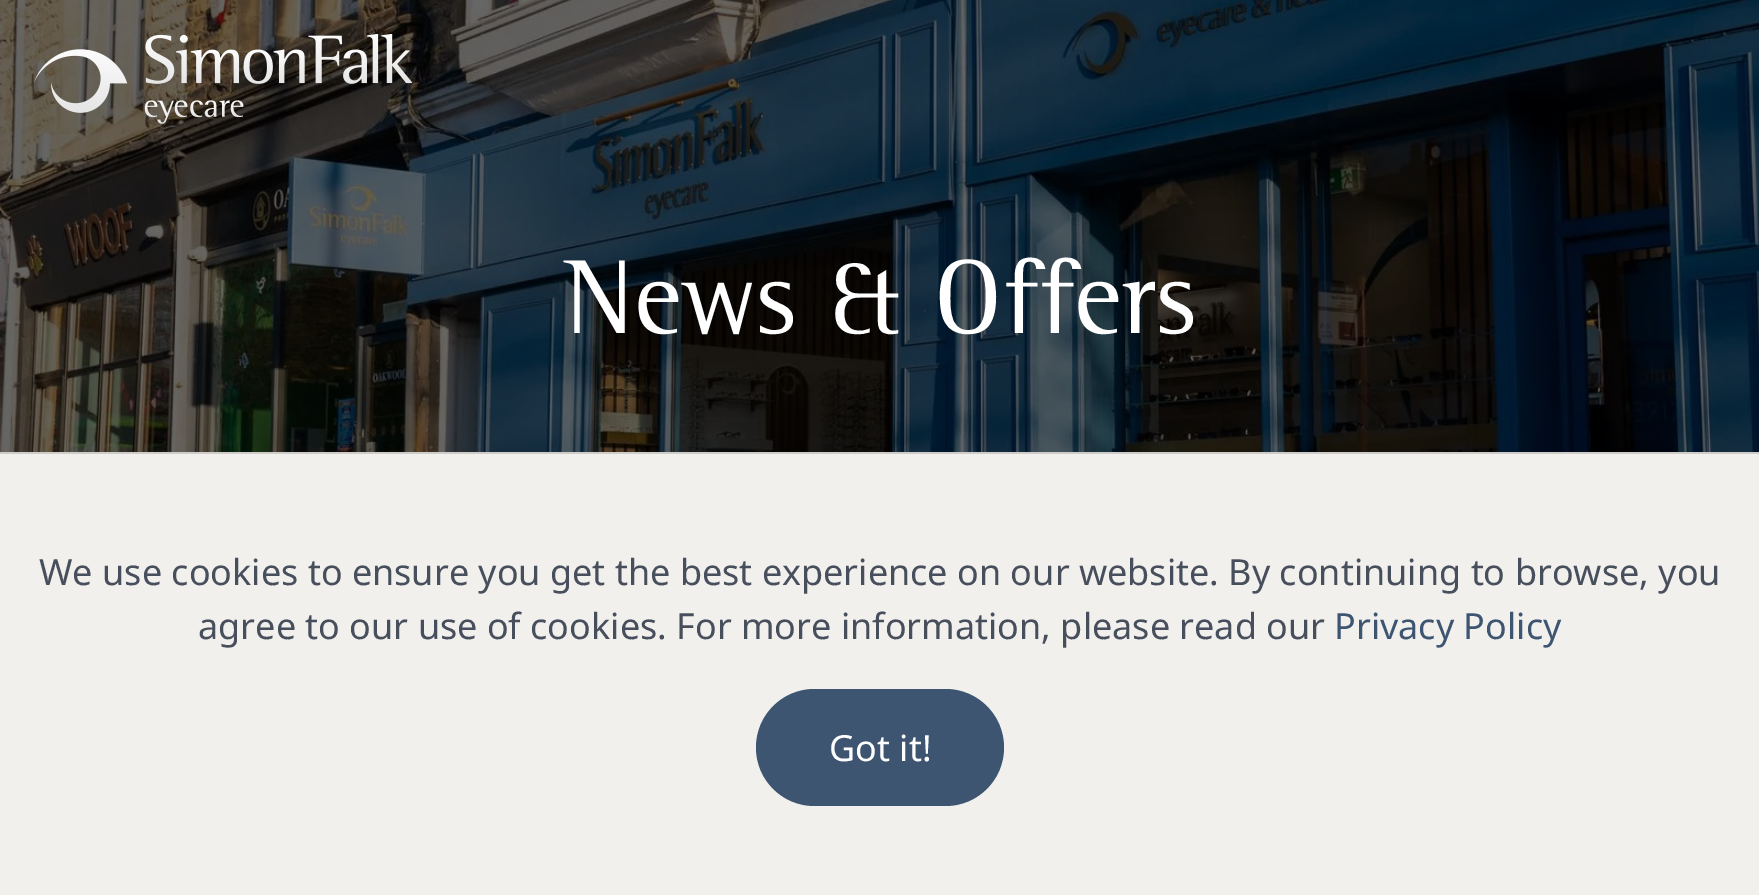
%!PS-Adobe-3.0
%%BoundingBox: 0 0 1759 895
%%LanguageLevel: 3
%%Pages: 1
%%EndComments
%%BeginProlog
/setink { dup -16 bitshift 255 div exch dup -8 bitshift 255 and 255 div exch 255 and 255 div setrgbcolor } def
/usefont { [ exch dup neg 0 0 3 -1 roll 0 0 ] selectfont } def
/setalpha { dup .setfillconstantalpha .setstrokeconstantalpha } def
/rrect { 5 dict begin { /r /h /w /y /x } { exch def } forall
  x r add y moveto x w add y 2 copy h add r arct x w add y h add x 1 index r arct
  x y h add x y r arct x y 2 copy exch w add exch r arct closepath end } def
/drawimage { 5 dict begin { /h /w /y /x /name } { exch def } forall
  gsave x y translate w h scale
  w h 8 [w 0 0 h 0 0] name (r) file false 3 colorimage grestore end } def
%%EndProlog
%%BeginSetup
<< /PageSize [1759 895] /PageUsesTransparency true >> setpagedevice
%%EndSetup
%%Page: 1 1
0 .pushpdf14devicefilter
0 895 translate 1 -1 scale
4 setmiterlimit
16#FFFFFF setink
0 0 1759 895 rectfill
(img2.raw) 0 0 1759 452 drawimage
0.6 setalpha
16#000000 setink
0 0 1759 452 rectfill
1 setalpha
(img1.raw) 34 34 378 90 drawimage
/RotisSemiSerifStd-Regular 108 usefont
16#FFFFFF setink
564 333 moveto (News & Offers) show
16#F1F0ED setink
0 454 1759 441 rectfill
16#CECCC8 setink
0 452 1759 2 rectfill
/NotoSans-Regular 36 usefont
16#484F5C setink
39 585 moveto (We use cookies to ensure you get the best experience on our website. By continuing to browse, you) show
198 639 moveto (agree to our use of cookies. For more information, please read our) show
16#3D5571 setink
1334 639 moveto (Privacy Policy) show
756 689 248 117 58.5 rrect fill
16#FFFFFF setink
829 761 moveto (Got it!) show
.poppdf14devicefilter showpage
%%EOF
